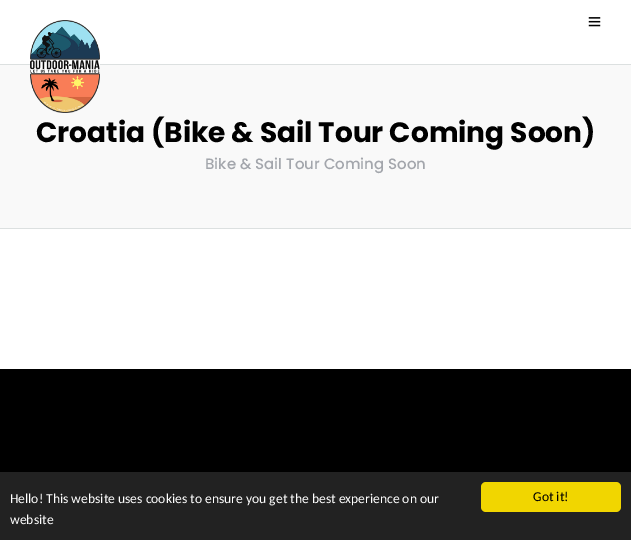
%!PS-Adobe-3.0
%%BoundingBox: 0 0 631 540
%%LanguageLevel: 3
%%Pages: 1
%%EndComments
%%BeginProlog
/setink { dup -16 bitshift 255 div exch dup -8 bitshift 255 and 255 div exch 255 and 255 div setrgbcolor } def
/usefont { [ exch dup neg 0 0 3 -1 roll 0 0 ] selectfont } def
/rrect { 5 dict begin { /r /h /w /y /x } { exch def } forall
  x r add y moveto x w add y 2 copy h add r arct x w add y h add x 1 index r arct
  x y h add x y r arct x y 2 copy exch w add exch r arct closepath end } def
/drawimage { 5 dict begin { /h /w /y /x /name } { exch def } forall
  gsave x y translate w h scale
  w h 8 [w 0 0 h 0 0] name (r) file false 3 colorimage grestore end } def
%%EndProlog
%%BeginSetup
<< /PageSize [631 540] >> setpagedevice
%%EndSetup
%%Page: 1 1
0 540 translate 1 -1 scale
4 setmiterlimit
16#FFFFFF setink
0 0 631 540 rectfill
16#DCE0E0 setink
0 64 631 1 rectfill
16#F9F9F9 setink
0 65 631 163 rectfill
(img1.raw) 30 20 70 93 drawimage
(img2.raw) 588 17 13 10 drawimage
16#DCE0E0 setink
0 228 631 1 rectfill
/Poppins-Bold 28 usefont
16#000000 setink
36 142 moveto (Croatia \(Bike & Sail Tour Coming Soon\)) show
/Poppins-Medium 15 usefont
16#A3A6AC setink
205 169 moveto (Bike & Sail Tour Coming Soon) show
16#000000 setink
0 369 631 103 rectfill
16#222222 setink
0 472 631 68 rectfill
/Carlito-Regular 13.6 usefont
16#FFFFFF setink
10 503 moveto (Hello! This website uses cookies to ensure you get the best experience on our) show
10 524 moveto (website) show
16#F1D600 setink
481 482 140 30 5 rrect fill
16#000000 setink
533 501 moveto (Got it!) show
showpage
%%EOF
